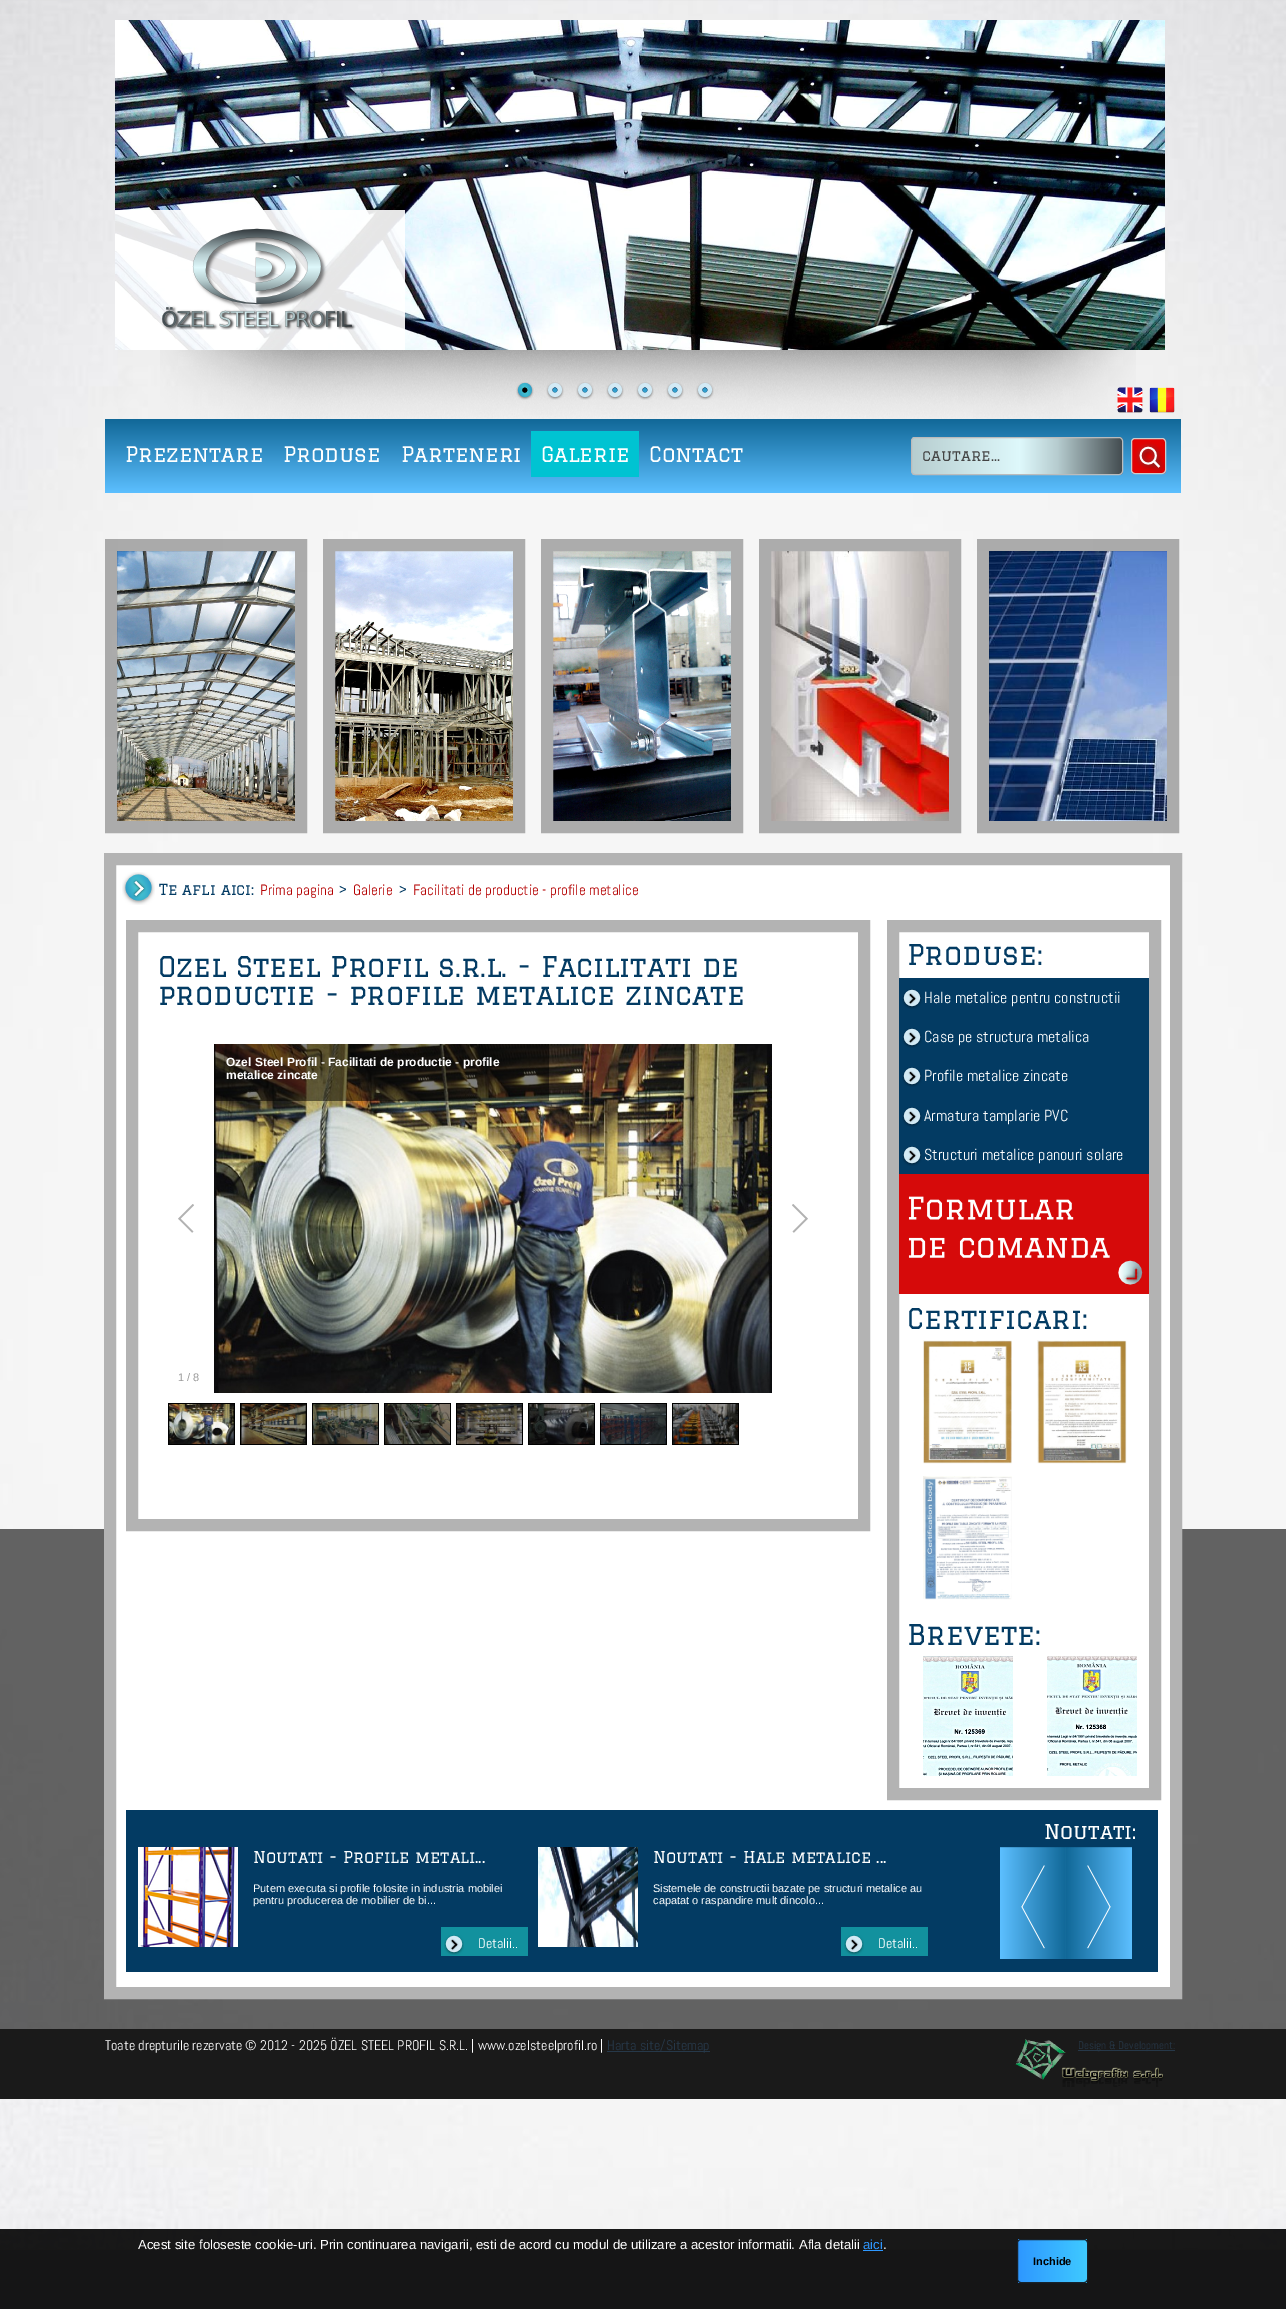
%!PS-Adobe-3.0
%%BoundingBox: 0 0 1286 2309
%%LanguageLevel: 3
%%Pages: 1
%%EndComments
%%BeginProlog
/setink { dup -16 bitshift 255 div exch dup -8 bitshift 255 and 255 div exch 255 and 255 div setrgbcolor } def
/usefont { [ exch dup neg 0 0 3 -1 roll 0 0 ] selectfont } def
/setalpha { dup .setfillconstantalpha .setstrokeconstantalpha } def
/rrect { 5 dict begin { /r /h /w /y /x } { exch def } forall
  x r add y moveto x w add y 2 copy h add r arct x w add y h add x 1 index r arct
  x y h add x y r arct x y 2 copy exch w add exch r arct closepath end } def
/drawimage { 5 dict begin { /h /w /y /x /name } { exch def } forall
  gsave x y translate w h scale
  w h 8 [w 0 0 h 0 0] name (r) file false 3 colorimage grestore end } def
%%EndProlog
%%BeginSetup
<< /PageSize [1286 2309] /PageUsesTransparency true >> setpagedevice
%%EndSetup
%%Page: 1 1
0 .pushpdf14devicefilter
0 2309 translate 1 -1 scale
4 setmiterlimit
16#DADADC setink
0 0 1286 2309 rectfill
(img1.raw) 0 0 1286 2250 drawimage
0.6 setalpha
16#000000 setink
0 1529 1286 500 rectfill
1 setalpha
(img2.raw) 160 350 976 69 drawimage
(img3.raw) 115 20 1050 330 drawimage
0.9 setalpha
16#FFFFFF setink
115 210 290 140 rectfill
1 setalpha
(img4.raw) 162 228 194 102 drawimage
(img5.raw) 516 382 18 18 drawimage
(img6.raw) 546 382 18 18 drawimage
(img7.raw) 576 382 18 18 drawimage
(img8.raw) 606 382 18 18 drawimage
(img9.raw) 636 382 18 18 drawimage
(img10.raw) 666 382 18 18 drawimage
(img11.raw) 696 382 18 18 drawimage
(img12.raw) 1117 387 26 26 drawimage
(img13.raw) 1149 387 26 26 drawimage
(img14.raw) 105 419 1076 74 drawimage
/Graduate-Regular 21 usefont
[
    [(Prezentare) 125 462]
    [(Produse) 283 462]
    [(Parteneri) 401 462]
] { aload pop moveto show } forall
16#00C3D2 setink
531 431 108 46 rectfill
16#FFFFFF setink
541 462 moveto (Galerie) show
649 462 moveto (Contact) show
(img15.raw) 912 437 211 38 drawimage
16#BBBBBB setink
911.5 437.5 211 37 3.5 rrect stroke
/Graduate-Regular 15 usefont
16#444444 setink
922 461 moveto (cautare...) show
(img16.raw) 1132 439 34 35 drawimage
16#CCCCCC setink
1131.5 438.5 34 35 3.5 rrect stroke
(img17.raw) 117 551 178 270 drawimage
0.3 setalpha
16#000000 setink
12 setlinewidth
111 545 190 282 rectstroke
1 setalpha
(img18.raw) 335 551 178 270 drawimage
16#ACACAC setink
329 545 190 282 rectstroke
(img19.raw) 553 551 178 270 drawimage
547 545 190 282 rectstroke
(img20.raw) 771 551 178 270 drawimage
765 545 190 282 rectstroke
(img21.raw) 989 551 178 270 drawimage
0.3 setalpha
16#000000 setink
983 545 190 282 rectstroke
1 setalpha
16#FFFFFF setink
110 859 moveto 1176 859 lineto 1176 1993 lineto 110 1993 lineto closepath gsave fill grestore
16#B3B3B3 setink
stroke
(img22.raw) 122 872 33 33 drawimage
16#033B63 setink
159 895 moveto (Te afli aici:) show
/Abel-Regular 15 usefont
16#B40000 setink
260 895 moveto (Prima pagina) show
/Graduate-Regular 15 usefont
16#033B63 setink
338 895 moveto (>) show
/Abel-Regular 15 usefont
16#B40000 setink
353 895 moveto (Galerie) show
/Graduate-Regular 15 usefont
16#033B63 setink
398 895 moveto (>) show
/Abel-Regular 15 usefont
16#B40000 setink
413 895 moveto (Facilitati de productie - profile metalice) show
16#B3B3B3 setink
132 926 732 599 rectstroke
/Graduate-Regular 28 usefont
16#033B63 setink
158 977 moveto (Ozel Steel Profil s.r.l. - Facilitati de) show
158 1005 moveto (productie - profile metalice zincate) show
(img23.raw) 214 1044 558 349 drawimage
0.5 setalpha
16#000000 setink
214 1044 335 57 rectfill
/LiberationSans-Bold 12 usefont
1 setalpha
16#FFFFFF setink
226 1066 moveto (Ozel Steel Profil - Facilitati de productie - profile) show
226 1079 moveto (metalice zincate) show
(img24.raw) 178 1204 16 29 drawimage
(img25.raw) 792 1204 16 29 drawimage
/LiberationSans-Regular 11 usefont
16#999999 setink
178 1381 moveto (1 / 8) show
16#000000 setink
168 1403 67 42 rectfill
(img26.raw) 169 1404 65 40 drawimage
240 1403 67 42 rectfill
(img27.raw) 241 1404 65 40 drawimage
312 1403 67 42 rectfill
(img28.raw) 313 1404 65 40 drawimage
384 1403 67 42 rectfill
(img29.raw) 385 1404 65 40 drawimage
456 1403 67 42 rectfill
(img30.raw) 457 1404 65 40 drawimage
528 1403 67 42 rectfill
(img31.raw) 529 1404 65 40 drawimage
600 1403 67 42 rectfill
(img32.raw) 601 1404 65 40 drawimage
672 1403 67 42 rectfill
(img33.raw) 673 1404 65 40 drawimage
16#B3B3B3 setink
893 926 262 868 rectstroke
/Graduate-Regular 28 usefont
16#033B63 setink
907 965 moveto (Produse:) show
899 978 250 196 rectfill
(img34.raw) 902 989 20 20 drawimage
/Abel-Regular 16 usefont
16#FFFFFF setink
924 1003 moveto (Hale metalice pentru constructii) show
(img34.raw) 902 1028 20 20 drawimage
924 1042 moveto (Case pe structura metalica) show
(img34.raw) 902 1067 20 20 drawimage
924 1081 moveto (Profile metalice zincate) show
(img34.raw) 902 1107 20 20 drawimage
924 1121 moveto (Armatura tamplarie PVC) show
(img34.raw) 902 1146 20 20 drawimage
924 1160 moveto (Structuri metalice panouri solare) show
(img35.raw) 899 1174 250 120 drawimage
/Graduate-Regular 28 usefont
16#033B63 setink
907 1329 moveto (Certificari:) show
(img36.raw) 923 1340 89 124 drawimage
(img37.raw) 1037 1340 90 124 drawimage
(img38.raw) 923 1476 89 124 drawimage
907 1645 moveto (Brevete:) show
(img39.raw) 923 1656 90 120 drawimage
(img40.raw) 1047 1656 90 120 drawimage
126 1810 1032 162 rectfill
/Graduate-Regular 20 usefont
16#FFFFFF setink
1044 1839 moveto (Noutati:) show
(img41.raw) 138 1847 100 100 drawimage
/Graduate-Regular 16 usefont
253 1863 moveto (Noutati - Profile metali...) show
/LiberationSans-Regular 11 usefont
253 1892 moveto (Putem executa si profile folosite in industria mobilei) show
253 1904 moveto (pentru producerea de mobilier de bi...) show
16#12919E setink
441 1927 87 29 rectfill
(img42.raw) 444 1935 20 20 drawimage
/Abel-Regular 14 usefont
16#FFFFFF setink
478 1948 moveto (Detalii..) show
(img43.raw) 538 1847 100 100 drawimage
/Graduate-Regular 16 usefont
653 1863 moveto (Noutati - Hale metalice ...) show
/LiberationSans-Regular 11 usefont
653 1892 moveto (Sistemele de constructii bazate pe structuri metalice au) show
653 1904 moveto (capatat o raspandire mult dincolo...) show
16#12919E setink
841 1927 87 29 rectfill
(img42.raw) 844 1935 20 20 drawimage
/Abel-Regular 14 usefont
16#FFFFFF setink
878 1948 moveto (Detalii..) show
(img44.raw) 1000 1847 66 112 drawimage
(img45.raw) 1066 1847 66 112 drawimage
16#1A1A1A setink
0 2029 1286 70 rectfill
16#FFFFFF setink
105 2050 moveto (Toate drepturile rezervate © 2012 - 2025 ÖZEL STEEL PROFIL S.R.L. | www.ozelsteelprofil.ro |) show
16#263849 setink
607 2051 103 1 rectfill
607 2050 moveto (Harta site/Sitemap) show
(img46.raw) 1015 2039 149 48 drawimage
1078 2050 97 1 rectfill
/Abel-Regular 11 usefont
1078 2049 moveto (Design & Development:) show
0.9 setalpha
16#000000 setink
0 2229 1286 80 rectfill
/LiberationSans-Regular 13.2 usefont
1 setalpha
16#FFFFFF setink
138 2249 moveto (Acest site foloseste cookie-uri. Prin continuarea navigarii, esti de acord cu modul de utilizare a acestor informatii. Afla detalii) show
16#2E97FF setink
863 2249 moveto (aici) show
863 2250 20 1 rectfill
16#FFFFFF setink
883 2249 moveto (.) show
gsave
1017 2239 71 44 4 rrect clip newpath
gsave 1018 2239 moveto 1087 2239 lineto 1087 2283 lineto 1018 2283 lineto closepath clip newpath
<< /ShadingType 2 /ColorSpace /DeviceRGB /Coords [1018 2261 1087 2261] /Extend [true true] /Function << /FunctionType 2 /Domain [0 1] /C0 [0.18 0.592 1] /C1 [0.247 0.792 1] /N 1 >> >> shfill grestore
grestore
16#16222C setink
1 setlinewidth
1017.5 2239.5 70 43 3.5 rrect stroke
/LiberationSans-Bold 11 usefont
16#000000 setink
1033 2265 moveto (Inchide) show
.poppdf14devicefilter showpage
%%EOF
